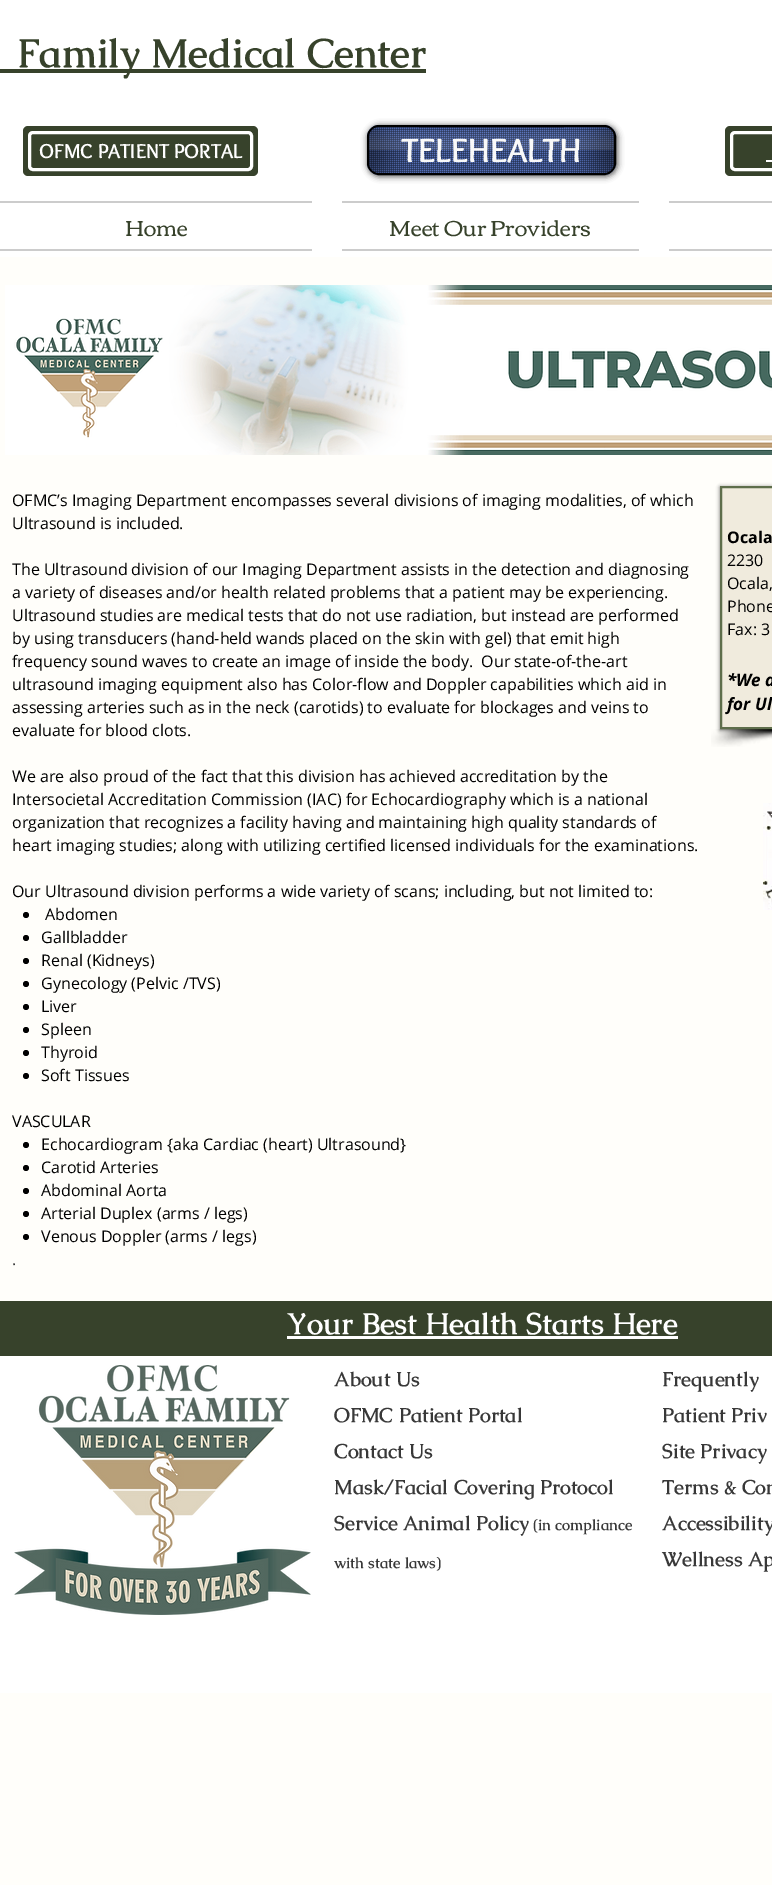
%!PS-Adobe-3.0
%%BoundingBox: 0 0 772 1885
%%LanguageLevel: 3
%%Pages: 1
%%EndComments
%%BeginProlog
/setink { dup -16 bitshift 255 div exch dup -8 bitshift 255 and 255 div exch 255 and 255 div setrgbcolor } def
/usefont { [ exch dup neg 0 0 3 -1 roll 0 0 ] selectfont } def
/setalpha { dup .setfillconstantalpha .setstrokeconstantalpha } def
/disc { newpath 0 360 arc closepath } def
/rrect { 5 dict begin { /r /h /w /y /x } { exch def } forall
  x r add y moveto x w add y 2 copy h add r arct x w add y h add x 1 index r arct
  x y h add x y r arct x y 2 copy exch w add exch r arct closepath end } def
/softshadow { 12 dict begin { /a /b /q /h /w /y /x } { exch def } forall gsave /was 0 def
  9 -2 -9 { dup b mul 4 div /e exch def 1 sub .425 mul 2.718 exch exp 1 add a .99 .min exch div /now exch def
    1 1 now sub 1 was sub div sub setalpha /was now def
    w h .min e 2 mul add 0 gt { x e sub y e sub w e 2 mul add h e 2 mul add
      q e add b .6 mul add w h .min 2 div e add .min 0 .max rrect fill } if } for grestore end } def
/drawimage { 5 dict begin { /h /w /y /x /name } { exch def } forall
  gsave x y translate w h scale
  w h 8 [w 0 0 h 0 0] name (r) file false 3 colorimage grestore end } def
%%EndProlog
%%BeginSetup
<< /PageSize [772 1885] /PageUsesTransparency true >> setpagedevice
%%EndSetup
%%Page: 1 1
0 .pushpdf14devicefilter
0 1885 translate 1 -1 scale
4 setmiterlimit
16#FFFEFA setink
0 0 772 1885 rectfill
16#FFFFFF setink
0 0 772 257 rectfill
16#37422B setink
0 69 426 4 rectfill
/Caudex-Bold 40 usefont
17 67 moveto (Family Medical Center) show
23 126 235 50 5 rrect fill
16#FFFFFF setink
3 setlinewidth
29.5 132.5 222 37 3.5 rrect stroke
/Overlock-Bold 21 usefont
39 158 moveto (OFMC PATIENT PORTAL) show
16#000000 setink
367 125 251 52 13 3 0.6 softshadow
16#536EB7 setink
367 125 249 50 12 rrect fill
(img1.raw) 367 125 249 50 drawimage
16#000000 setink
2 setlinewidth
368 126 247 48 11 rrect stroke
(img2.raw) 369 127 50 46 drawimage
(img3.raw) 564 127 50 46 drawimage
/Overlock-Bold 35 usefont
16#F8F8F8 setink
401 162 moveto (TELEHEALTH) show
(img4.raw) 369 130 245 20 drawimage
16#37422B setink
725 126 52 50 5 rrect fill
16#FFFFFF setink
3 setlinewidth
731.5 132.5 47 37 3.5 rrect stroke
[
    [766 160 6 2 16#FFFFFF]
    [0 201 312 2 16#CCCCCC]
    [0 249 312 2 16#CCCCCC]
] { aload pop setink rectfill } forall
/Corben-Regular 22 usefont
16#37422B setink
125 236 moveto (Home) show
16#CCCCCC setink
342 201 297 2 rectfill
342 249 297 2 rectfill
16#37422B setink
389 236 moveto (Meet Our Providers) show
16#CCCCCC setink
669 201 103 2 rectfill
669 249 103 2 rectfill
(img5.raw) 5 285 767 170 drawimage
/OpenSans-Regular 16 usefont
16#000000 setink
[
    [(OFMC’s Imaging Department encompasses several divisions of imaging modalities, of which) 12 506]
    [(Ultrasound is included.) 12 529]
    [(The Ultrasound division of our Imaging Department assists in the detection and diagnosing) 12 575]
    [(a variety of diseases and/or health related problems that a patient may be experiencing.) 12 598]
    [(Ultrasound studies are medical tests that do not use radiation, but instead are performed) 12 621]
    [(by using transducers \(hand-held wands placed on the skin with gel\) that emit high) 12 644]
    [(frequency sound waves to create an image of inside the body.  Our state-of-the-art) 12 667]
    [(ultrasound imaging equipment also has Color-flow and Doppler capabilities which aid in) 12 690]
    [(assessing arteries such as in the neck \(carotids\) to evaluate for blockages and veins to) 12 713]
    [(evaluate for blood clots.) 12 736]
    [(We are also proud of the fact that this division has achieved accreditation by the) 12 782]
    [(Intersocietal Accreditation Commission \(IAC\) for Echocardiography which is a national) 12 805]
    [(organization that recognizes a facility having and maintaining high quality standards of) 12 828]
    [(heart imaging studies; along with utilizing certified licensed individuals for the examinations.) 12 851]
    [(Our Ultrasound division performs a wide variety of scans; including, but not limited to:) 12 897]
] { aload pop moveto show } forall
26 915 3 disc fill
45 920 moveto (Abdomen) show
26 938 3 disc fill
41 943 moveto (Gallbladder) show
26 961 3 disc fill
41 966 moveto (Renal \(Kidneys\)) show
26 984 3 disc fill
41 989 moveto (Gynecology \(Pelvic /TVS\)) show
26 1007 3 disc fill
41 1012 moveto (Liver) show
26 1030 3 disc fill
41 1035 moveto (Spleen) show
26 1053 3 disc fill
41 1058 moveto (Thyroid) show
26 1076 3 disc fill
41 1081 moveto (Soft Tissues) show
12 1127 moveto (VASCULAR) show
26 1145 3 disc fill
41 1150 moveto (Echocardiogram {aka Cardiac \(heart\) Ultrasound}) show
26 1168 3 disc fill
41 1173 moveto (Carotid Arteries) show
26 1191 3 disc fill
41 1196 moveto (Abdominal Aorta) show
26 1214 3 disc fill
41 1219 moveto (Arterial Duplex \(arms / legs\)) show
26 1237 3 disc fill
41 1242 moveto (Venous Doppler \(arms / legs\)) show
16#383838 setink
12 1265 moveto (.) show
(img6.raw) 711 729 61 18 drawimage
16#000000 setink
720 487 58 243 0 2 0.6 softshadow
16#F0EBDD setink
721 487 moveto 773 487 lineto 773 728 lineto 721 728 lineto closepath gsave fill grestore
16#5E6E4B setink
2 setlinewidth
stroke
/OpenSans-Bold 16 usefont
16#000000 setink
727 543 moveto (Ocala) show
/OpenSans-Regular 16 usefont
[
    [(2230) 727 566]
    [(Ocala,) 727 589]
    [(Phone) 727 612]
    [(Fax: 3) 727 635]
] { aload pop moveto show } forall
/OpenSans-BoldItalic 17 usefont
727 686 moveto (*We a) show
727 710 moveto (for Ul) show
(img7.raw) 763 803 9 107 drawimage
16#37422B setink
0 1301 772 55 rectfill
/Caudex-Bold 30 usefont
16#FFFFFF setink
287 1334 moveto (Your Best Health Starts Here) show
287 1336 391 3 rectfill
0 1356 772 337 rectfill
(img8.raw) 14 1365 297 250 drawimage
/Caudex-Bold 20 usefont
16#383838 setink
[
    [(About Us) 334 1386]
    [(OFMC Patient Portal) 334 1422]
    [(Contact Us) 334 1458]
    [(Mask/Facial Covering Protocol) 334 1494]
    [(Service Animal Policy) 334 1530]
] { aload pop moveto show } forall
/Caudex-Bold 15 usefont
533 1530 moveto (\(in compliance) show
334 1568 moveto (with state laws\)) show
/Caudex-Bold 20 usefont
[
    [(Frequently) 662 1386]
    [(Patient Priv) 662 1422]
    [(Site Privacy) 662 1458]
    [(Terms & Con) 662 1494]
    [(Accessibility) 662 1530]
    [(Wellness Ap) 662 1566]
] { aload pop moveto show } forall
.poppdf14devicefilter showpage
%%EOF
